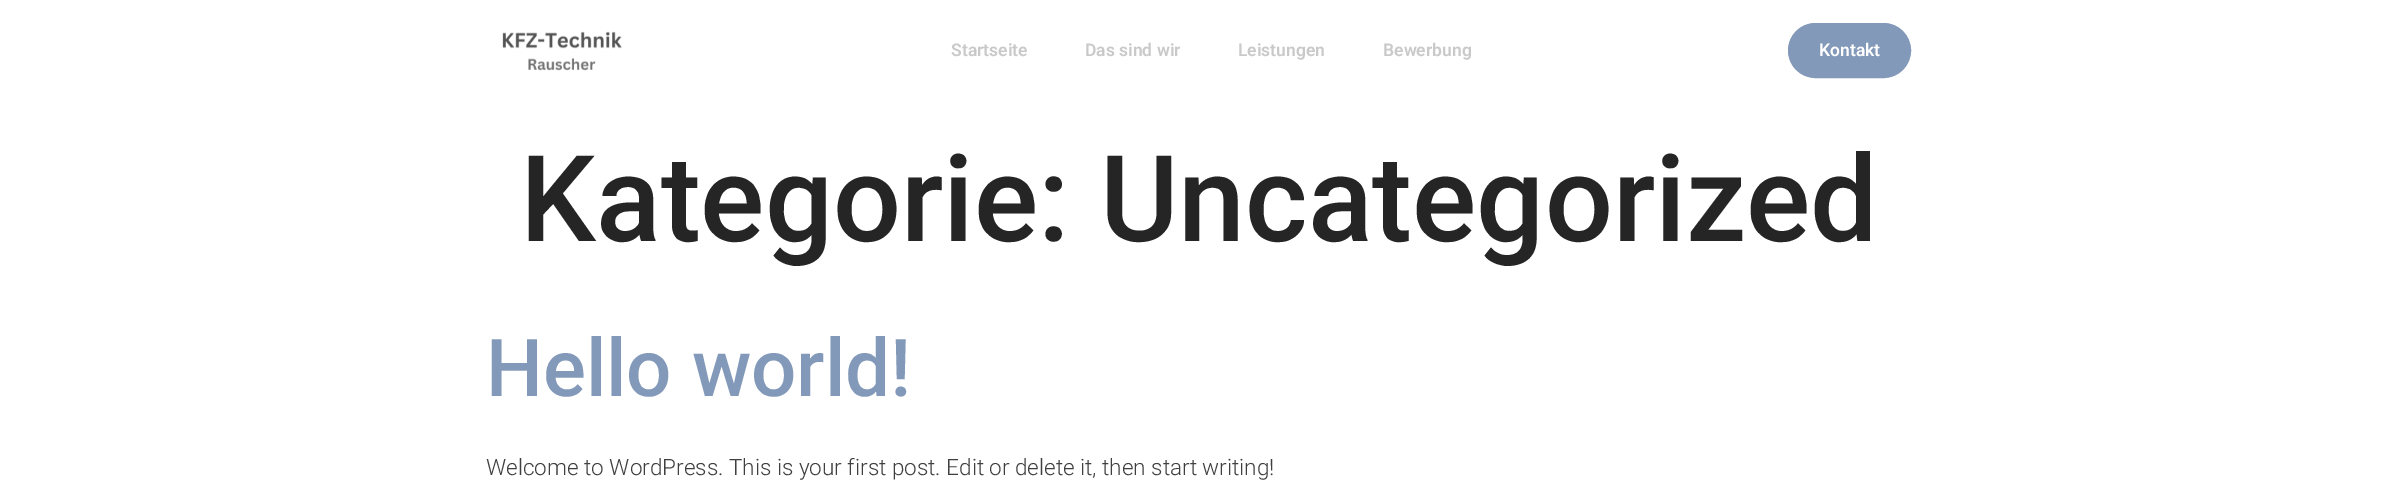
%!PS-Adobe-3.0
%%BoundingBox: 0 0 2397 503
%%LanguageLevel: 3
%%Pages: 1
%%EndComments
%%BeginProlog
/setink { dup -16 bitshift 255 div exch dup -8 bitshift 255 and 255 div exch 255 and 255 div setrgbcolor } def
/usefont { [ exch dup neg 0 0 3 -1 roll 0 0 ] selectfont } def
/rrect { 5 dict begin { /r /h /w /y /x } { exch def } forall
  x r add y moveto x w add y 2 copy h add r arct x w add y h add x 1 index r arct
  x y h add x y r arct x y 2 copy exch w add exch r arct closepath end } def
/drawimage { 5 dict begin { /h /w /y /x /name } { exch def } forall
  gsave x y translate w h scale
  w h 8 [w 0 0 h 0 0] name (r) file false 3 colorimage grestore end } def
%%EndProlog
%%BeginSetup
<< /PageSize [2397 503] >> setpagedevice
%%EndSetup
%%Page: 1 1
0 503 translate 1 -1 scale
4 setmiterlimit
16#FFFFFF setink
0 0 2397 503 rectfill
(img1.raw) 502 31 120 40 drawimage
/Roboto-SemiBold 17.5 usefont
16#C9C9C9 setink
[
    [(Startseite) 951 56]
    [(Das sind wir) 1085 56]
    [(Leistungen) 1238 56]
    [(Bewerbung) 1383 56]
] { aload pop moveto show } forall
16#8399B9 setink
1788.5 23.5 122 54 27 rrect gsave fill grestore
stroke
16#FFFFFF setink
1819 56 moveto (Kontakt) show
/Roboto-Medium 120 usefont
16#252525 setink
520 241 moveto (Kategorie: Uncategorized) show
/Roboto-Medium 80 usefont
16#8399B9 setink
486 396 moveto (Hello world!) show
/Roboto-Light 22.5 usefont
16#3F3F3F setink
486 475 moveto (Welcome to WordPress. This is your first post. Edit or delete it, then start writing!) show
showpage
%%EOF
